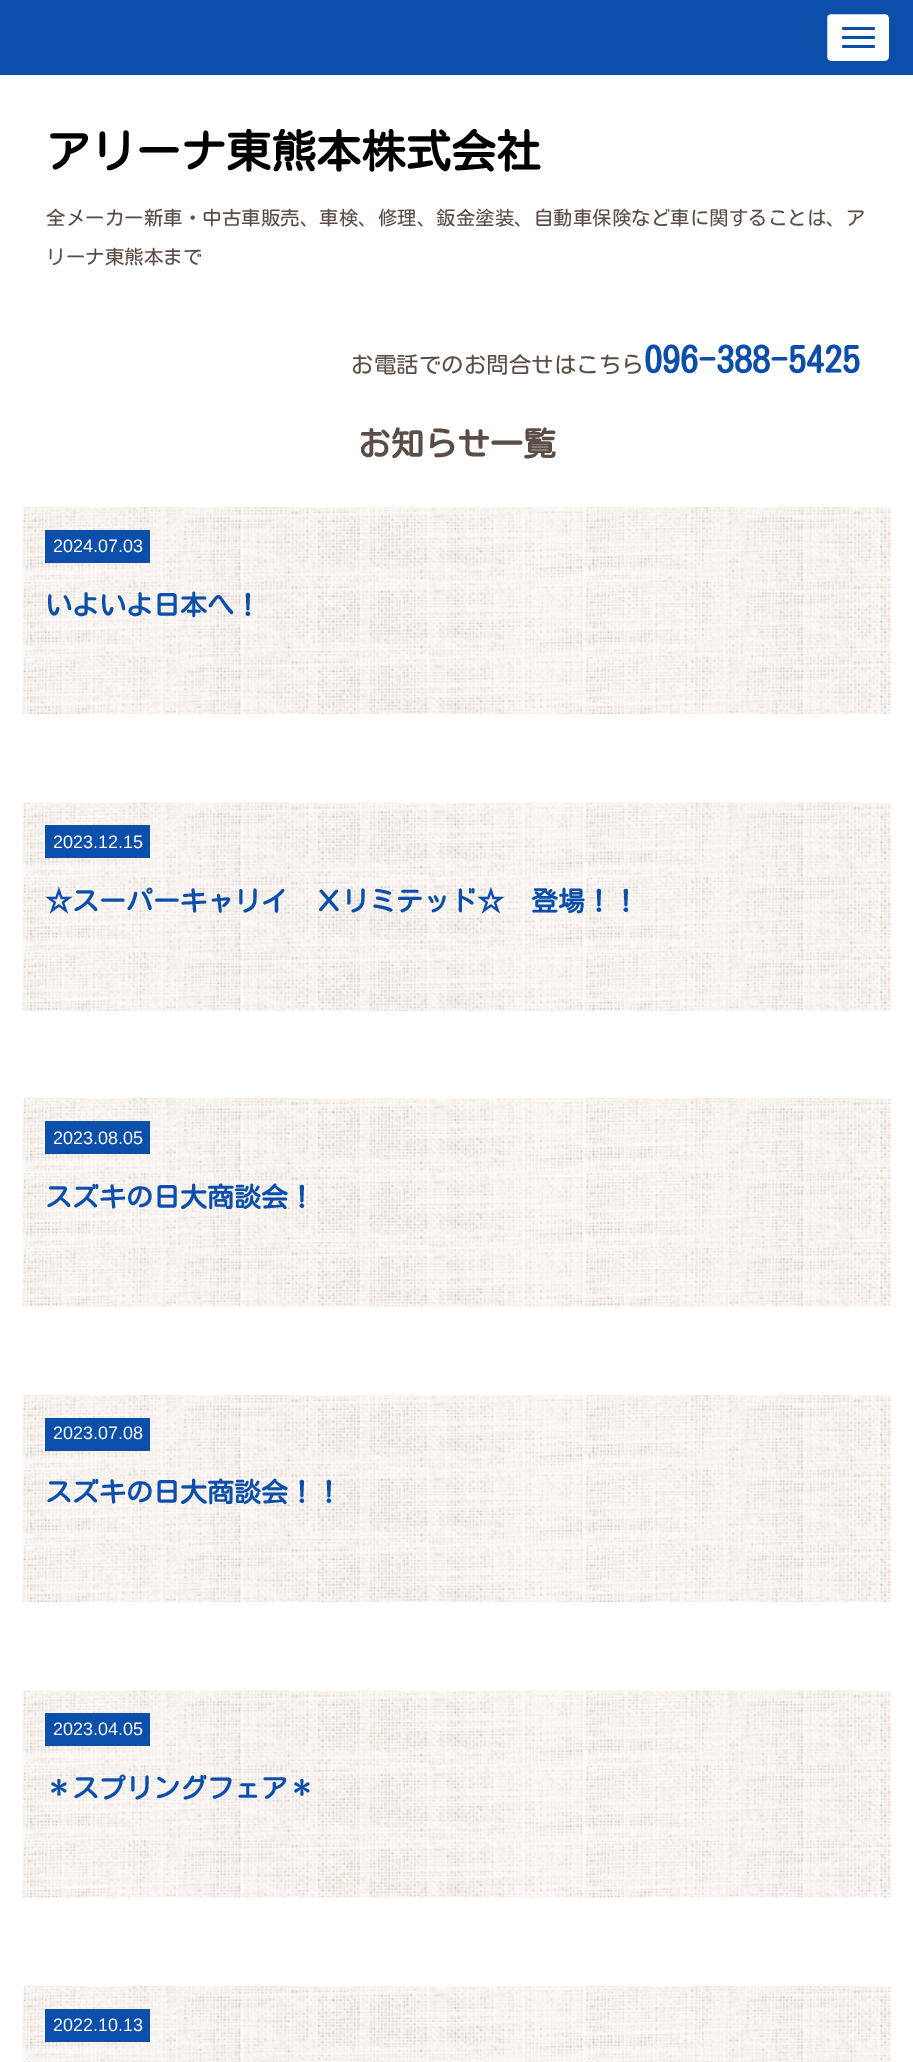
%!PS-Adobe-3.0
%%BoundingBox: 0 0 913 2062
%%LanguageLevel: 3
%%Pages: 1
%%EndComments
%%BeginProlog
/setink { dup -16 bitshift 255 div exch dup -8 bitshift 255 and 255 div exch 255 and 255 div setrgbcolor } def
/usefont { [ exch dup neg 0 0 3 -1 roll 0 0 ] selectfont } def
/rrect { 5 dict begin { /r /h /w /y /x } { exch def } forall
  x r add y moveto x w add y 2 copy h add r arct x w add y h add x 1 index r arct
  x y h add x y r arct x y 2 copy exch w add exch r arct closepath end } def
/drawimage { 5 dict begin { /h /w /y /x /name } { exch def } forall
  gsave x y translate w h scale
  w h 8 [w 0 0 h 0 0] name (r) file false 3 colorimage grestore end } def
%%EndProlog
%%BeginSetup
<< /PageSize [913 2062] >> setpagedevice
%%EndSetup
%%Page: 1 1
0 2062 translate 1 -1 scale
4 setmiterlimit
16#FFFFFF setink
0 0 913 2062 rectfill
16#0C4FAA setink
0 0 913 75 rectfill
16#FFFFFF setink
826 13 64 49 5 rrect gsave fill grestore
16#0C4FAA setink
2 setlinewidth
stroke
842 27 33 3 1.5 rrect fill
842 36 33 3 1.5 rrect fill
842 45 33 3 1.5 rrect fill
/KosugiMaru-Bold 45 usefont
16#000000 setink
46 168 moveto (アリーナ東熊本株式会社) show
/KosugiMaru-Regular 19.5 usefont
16#5B4C46 setink
46 225 moveto (全メーカー新車・中古車販売、車検、修理、鈑金塗装、自動車保険など車に関することは、ア) show
46 264 moveto (リーナ東熊本まで) show
/KosugiMaru-Regular 22.5 usefont
351 373 moveto (お電話でのお問合せはこちら) show
/KosugiMaru-Bold 36 usefont
16#0C4FAA setink
644 373 moveto (096-388-5425) show
/KosugiMaru-Bold 33 usefont
16#5B4C46 setink
358 456 moveto (お知らせ一覧) show
(img1.raw) 22 507 869 207 drawimage
16#0C4FAA setink
45 530 105 33 rectfill
/LiberationSans-Regular 18 usefont
16#FFFFFF setink
53 552 moveto (2024.07.03) show
/KosugiMaru-Bold 27 usefont
16#0C4FAA setink
45 615 moveto (いよいよ日本へ！) show
(img2.raw) 22 802 869 209 drawimage
45 825 105 33 rectfill
/LiberationSans-Regular 18 usefont
16#FFFFFF setink
53 848 moveto (2023.12.15) show
/KosugiMaru-Bold 27 usefont
16#0C4FAA setink
45 911 moveto (☆スーパーキャリイ　Ｘリミテッド☆　登場！！) show
(img3.raw) 22 1098 869 209 drawimage
45 1121 105 33 rectfill
/LiberationSans-Regular 18 usefont
16#FFFFFF setink
53 1144 moveto (2023.08.05) show
/KosugiMaru-Bold 27 usefont
16#0C4FAA setink
45 1207 moveto (スズキの日大商談会！) show
(img1.raw) 22 1395 869 207 drawimage
45 1418 105 33 rectfill
/LiberationSans-Regular 18 usefont
16#FFFFFF setink
53 1439 moveto (2023.07.08) show
/KosugiMaru-Bold 27 usefont
16#0C4FAA setink
45 1502 moveto (スズキの日大商談会！！) show
(img4.raw) 22 1690 869 208 drawimage
45 1713 105 33 rectfill
/LiberationSans-Regular 18 usefont
16#FFFFFF setink
53 1735 moveto (2023.04.05) show
/KosugiMaru-Bold 27 usefont
16#0C4FAA setink
45 1798 moveto (＊スプリングフェア＊) show
(img5.raw) 22 1986 869 76 drawimage
45 2009 105 33 rectfill
/LiberationSans-Regular 18 usefont
16#FFFFFF setink
53 2031 moveto (2022.10.13) show
showpage
%%EOF
